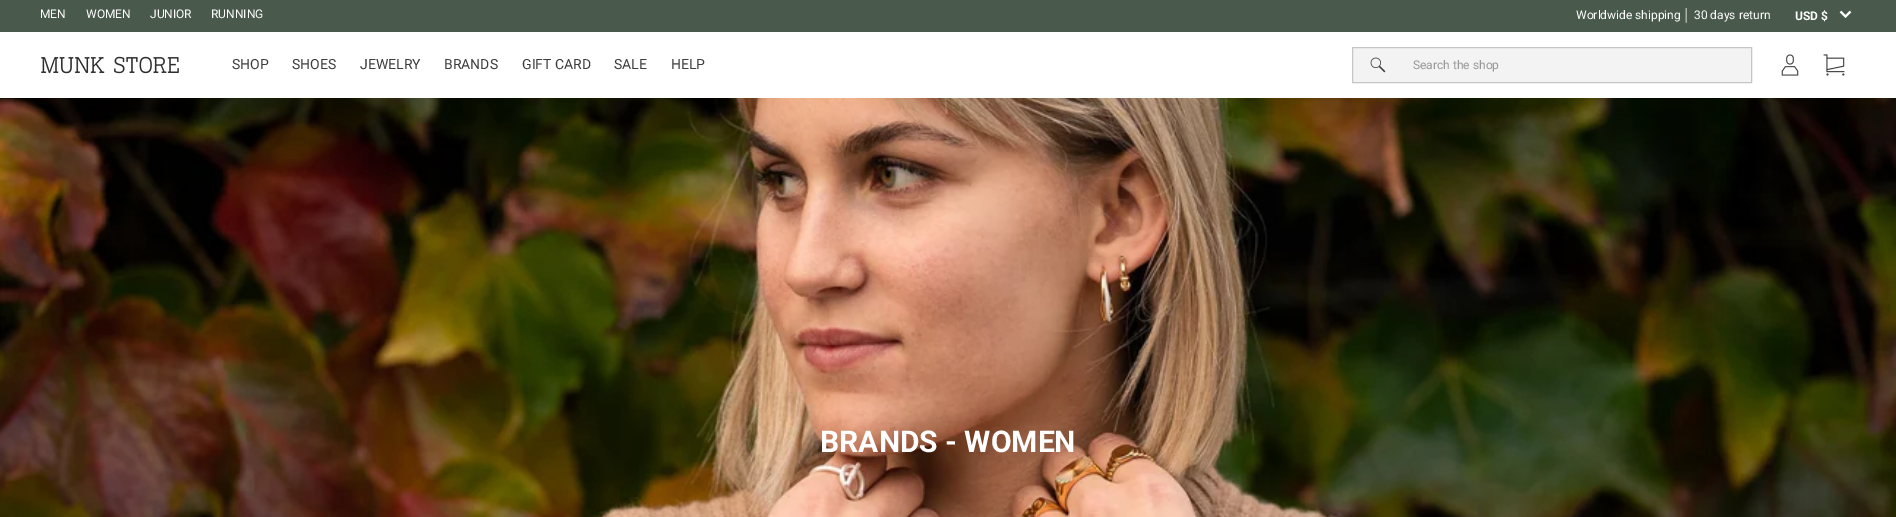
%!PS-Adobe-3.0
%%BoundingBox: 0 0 1896 517
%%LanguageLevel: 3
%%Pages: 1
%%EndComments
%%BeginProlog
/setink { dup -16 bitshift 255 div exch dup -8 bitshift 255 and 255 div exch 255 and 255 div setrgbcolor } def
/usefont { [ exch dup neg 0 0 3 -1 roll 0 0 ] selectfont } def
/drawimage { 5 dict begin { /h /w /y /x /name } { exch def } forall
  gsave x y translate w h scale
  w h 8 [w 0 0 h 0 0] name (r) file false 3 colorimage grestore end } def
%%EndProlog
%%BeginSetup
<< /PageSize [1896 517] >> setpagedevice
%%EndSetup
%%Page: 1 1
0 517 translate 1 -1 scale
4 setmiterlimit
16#FFFFFF setink
0 0 1896 517 rectfill
16#49594C setink
0 0 1896 32 rectfill
/Roboto-Regular 12 usefont
16#FFFFFF setink
[
    [(MEN) 40 18]
    [(WOMEN) 86 18]
    [(JUNIOR) 150 18]
    [(RUNNING) 211 18]
    [(Worldwide shipping) 1576 19]
] { aload pop moveto show } forall
/LiberationSans-Regular 12 usefont
1683 19 moveto (│) show
/Roboto-Regular 12 usefont
1694 19 moveto (30 days return) show
/Roboto-Bold 12 usefont
1795 20 moveto (USD $) show
2 setlinewidth
1840.5 11.5 moveto 1845.5 16.5 lineto 1850.5 11.5 lineto stroke
(img1.raw) 41 56 138 18 drawimage
/Roboto-Regular 14 usefont
16#3D3D3D setink
[
    [(SHOP) 232 69]
    [(SHOES) 292 69]
    [(JEWELRY) 360 69]
    [(BRANDS) 444 69]
    [(GIFT CARD) 522 69]
    [(SALE) 614 69]
    [(HELP) 671 69]
] { aload pop moveto show } forall
16#F3F3F3 setink
1352.5 47.5 moveto 1751.5 47.5 lineto 1751.5 82.5 lineto 1352.5 82.5 lineto closepath gsave fill grestore
16#C6C6C6 setink
1 setlinewidth
stroke
(img2.raw) 1370 57 16 16 drawimage
/Roboto-Regular 12 usefont
16#989898 setink
1413 69 moveto (Search the shop) show
(img3.raw) 1781 54 18 22 drawimage
(img4.raw) 1823 54 22 22 drawimage
(img5.raw) 0 98 1896 419 drawimage
/Roboto-Bold 30 usefont
16#FFFFFF setink
820 452 moveto (BRANDS - WOMEN) show
showpage
%%EOF
